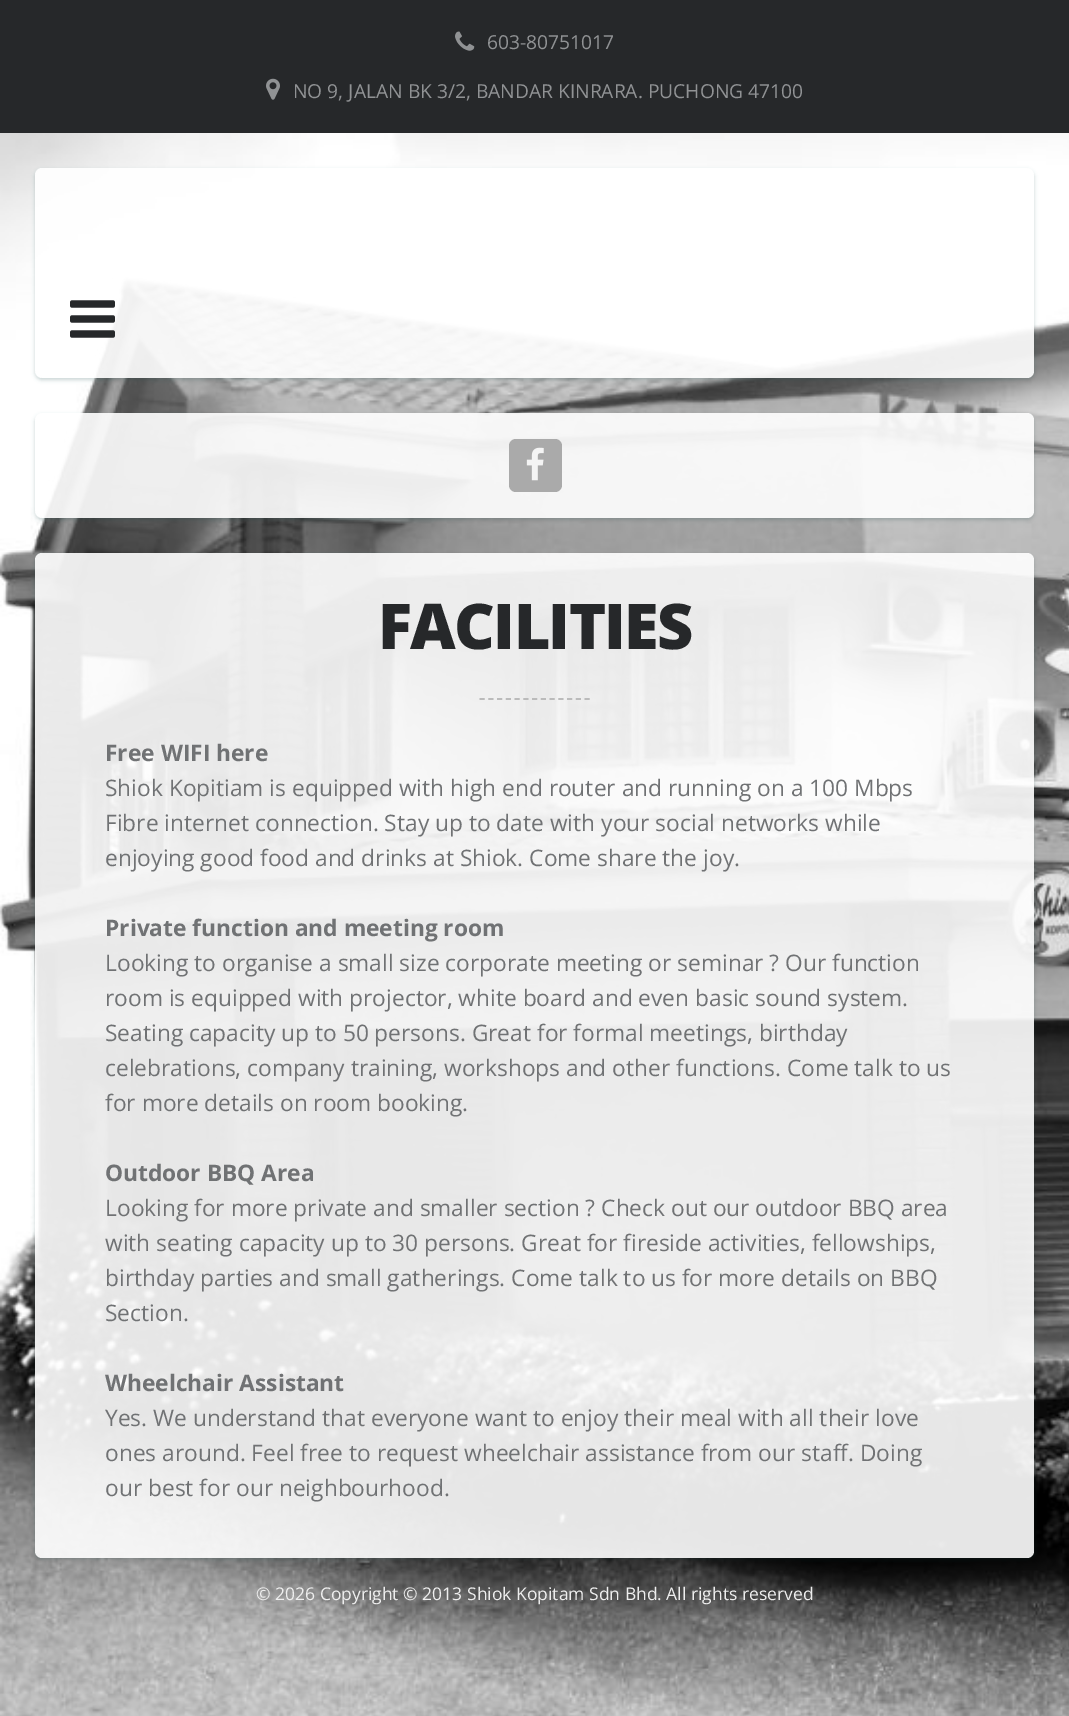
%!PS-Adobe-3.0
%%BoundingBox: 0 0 1069 1716
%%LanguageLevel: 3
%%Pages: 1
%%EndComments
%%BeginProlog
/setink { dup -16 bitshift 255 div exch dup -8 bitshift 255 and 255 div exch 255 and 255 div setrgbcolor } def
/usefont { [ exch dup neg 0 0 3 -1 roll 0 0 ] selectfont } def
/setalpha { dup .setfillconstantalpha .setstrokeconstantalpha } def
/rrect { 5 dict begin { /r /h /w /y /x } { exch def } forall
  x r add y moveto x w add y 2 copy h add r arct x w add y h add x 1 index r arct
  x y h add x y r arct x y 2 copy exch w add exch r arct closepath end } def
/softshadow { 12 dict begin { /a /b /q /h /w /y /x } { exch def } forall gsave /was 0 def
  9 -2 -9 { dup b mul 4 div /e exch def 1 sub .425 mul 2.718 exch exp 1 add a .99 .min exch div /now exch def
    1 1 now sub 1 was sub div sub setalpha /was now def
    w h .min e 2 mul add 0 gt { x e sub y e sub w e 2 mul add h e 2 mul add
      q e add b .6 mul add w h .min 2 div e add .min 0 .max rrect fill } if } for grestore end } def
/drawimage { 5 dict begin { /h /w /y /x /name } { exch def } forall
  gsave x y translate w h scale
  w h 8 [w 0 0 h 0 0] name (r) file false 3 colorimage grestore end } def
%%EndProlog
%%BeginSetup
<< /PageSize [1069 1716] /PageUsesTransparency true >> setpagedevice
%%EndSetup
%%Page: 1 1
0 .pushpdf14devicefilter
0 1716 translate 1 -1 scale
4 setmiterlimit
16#FFFFFF setink
0 0 1069 1716 rectfill
(img1.raw) 0 133 1069 1583 drawimage
16#26282A setink
0 0 1069 133 rectfill
(img2.raw) 455 31 20 20 drawimage
/OpenSans-Regular 19.25 usefont
16#909294 setink
487 49 moveto (603-80751017) show
(img3.raw) 266 78 14 22 drawimage
293 98 moveto (NO 9, JALAN BK 3/2, BANDAR KINRARA. PUCHONG 47100) show
gsave
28 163 moveto 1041 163 lineto 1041 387 lineto 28 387 lineto closepath 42 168 moveto 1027 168 lineto 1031 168 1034 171 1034 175 curveto 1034 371 lineto 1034 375 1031 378 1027 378 curveto 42 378 lineto 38 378 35 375 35 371 curveto 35 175 lineto 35 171 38 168 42 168 curveto closepath eoclip newpath
16#1E4646 setink
35 170 999 210 7 2 0.23 softshadow
grestore
0.9 setalpha
16#FFFFFF setink
35 168 999 210 7 rrect fill
1 setalpha
(img4.raw) 70 300 45 38 drawimage
gsave
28 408 moveto 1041 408 lineto 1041 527 lineto 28 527 lineto closepath 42 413 moveto 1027 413 lineto 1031 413 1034 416 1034 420 curveto 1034 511 lineto 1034 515 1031 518 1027 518 curveto 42 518 lineto 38 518 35 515 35 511 curveto 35 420 lineto 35 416 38 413 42 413 curveto closepath eoclip newpath
16#1E4646 setink
35 415 999 105 7 2 0.23 softshadow
grestore
0.9 setalpha
35 413 999 105 7 rrect fill
1 setalpha
16#AAAAAA setink
509 439 53 53 7 rrect fill
(img5.raw) 526 447 18 34 drawimage
gsave
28 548 moveto 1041 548 lineto 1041 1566 lineto 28 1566 lineto closepath 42 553 moveto 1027 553 lineto 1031 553 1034 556 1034 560 curveto 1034 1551 lineto 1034 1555 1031 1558 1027 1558 curveto 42 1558 lineto 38 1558 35 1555 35 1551 curveto 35 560 lineto 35 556 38 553 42 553 curveto closepath eoclip newpath
16#1E4646 setink
35 555 999 1004 7 2 0.23 softshadow
grestore
0.9 setalpha
16#FFFFFF setink
35 553 999 1005 7 rrect fill
/OpenSans-ExtraBold 63 usefont
1 setalpha
16#26282A setink
378 649 moveto -1.75 0 (FACILITIES) ashow
16#BBBBBB setink
1.8 setlinewidth
[5.25 3.5] 0 setdash
479.5 699 moveto 590 699 lineto stroke
/OpenSans-Bold 22.75 usefont
16#707274 setink
105 761 moveto (Free WIFI here) show
/OpenSans-Regular 22.75 usefont
[
    [(Shiok Kopitiam is equipped with high end router and running on a 100 Mbps) 105 796]
    [(Fibre internet connection. Stay up to date with your social networks while) 105 831]
    [(enjoying good food and drinks at Shiok. Come share the joy.) 105 866]
] { aload pop moveto show } forall
/OpenSans-Bold 22.75 usefont
105 936 moveto (Private function and meeting room) show
/OpenSans-Regular 22.75 usefont
[
    [(Looking to organise a small size corporate meeting or seminar ? Our function) 105 971]
    [(room is equipped with projector, white board and even basic sound system.) 105 1006]
    [(Seating capacity up to 50 persons. Great for formal meetings, birthday) 105 1041]
    [(celebrations, company training, workshops and other functions. Come talk to us) 105 1076]
    [(for more details on room booking.) 105 1111]
] { aload pop moveto show } forall
/OpenSans-Bold 22.75 usefont
105 1181 moveto (Outdoor BBQ Area) show
/OpenSans-Regular 22.75 usefont
[
    [(Looking for more private and smaller section ? Check out our outdoor BBQ area) 105 1216]
    [(with seating capacity up to 30 persons. Great for fireside activities, fellowships,) 105 1251]
    [(birthday parties and small gatherings. Come talk to us for more details on BBQ) 105 1286]
    [(Section.) 105 1321]
] { aload pop moveto show } forall
/OpenSans-Bold 22.75 usefont
105 1391 moveto (Wheelchair Assistant) show
/OpenSans-Regular 22.75 usefont
[
    [(Yes. We understand that everyone want to enjoy their meal with all their love) 105 1426]
    [(ones around. Feel free to request wheelchair assistance from our staff. Doing) 105 1461]
    [(our best for our neighbourhood.) 105 1496]
] { aload pop moveto show } forall
/OpenSans-Regular 17.5 usefont
16#EEEEEE setink
256 1600 moveto (© 2026 Copyright © 2013 Shiok Kopitam Sdn Bhd. All rights reserved) show
.poppdf14devicefilter showpage
%%EOF
